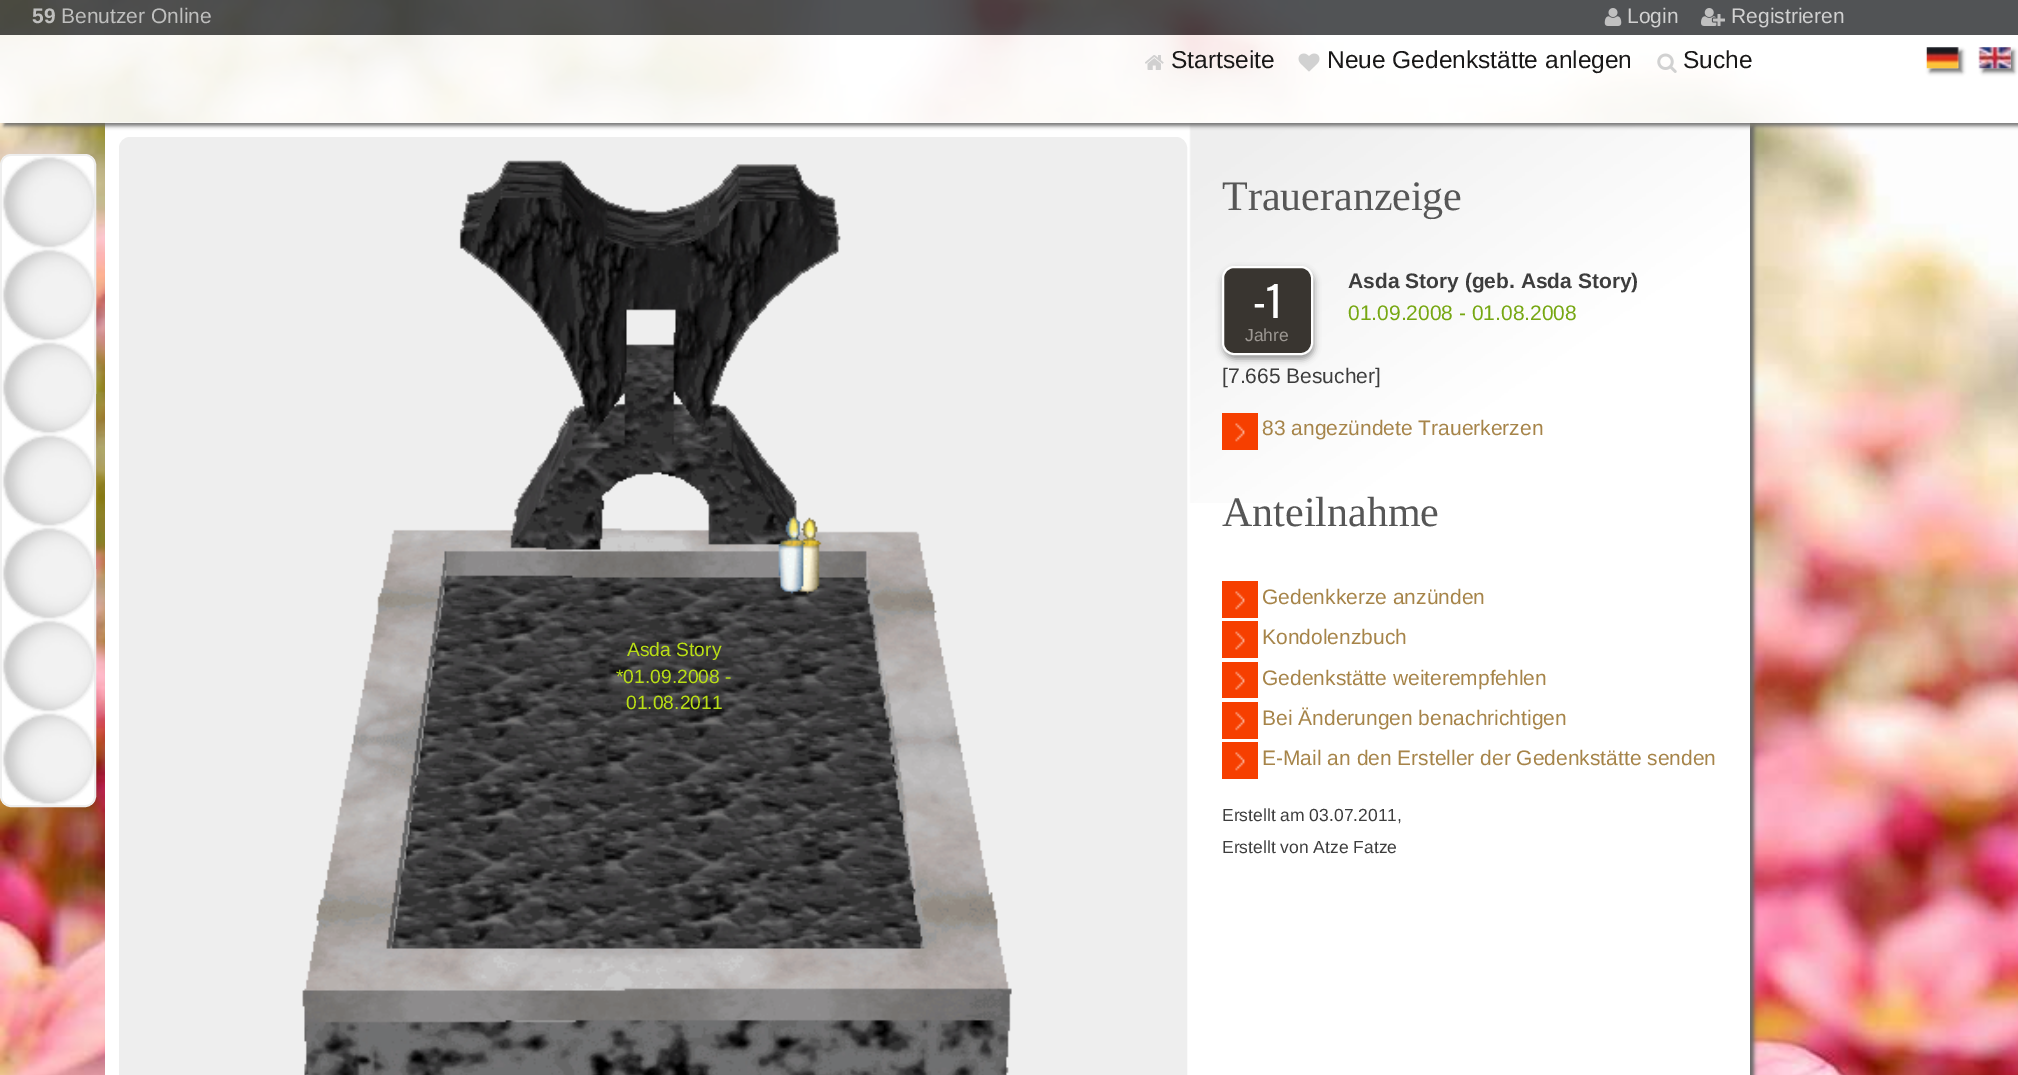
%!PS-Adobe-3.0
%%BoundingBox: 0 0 2018 1075
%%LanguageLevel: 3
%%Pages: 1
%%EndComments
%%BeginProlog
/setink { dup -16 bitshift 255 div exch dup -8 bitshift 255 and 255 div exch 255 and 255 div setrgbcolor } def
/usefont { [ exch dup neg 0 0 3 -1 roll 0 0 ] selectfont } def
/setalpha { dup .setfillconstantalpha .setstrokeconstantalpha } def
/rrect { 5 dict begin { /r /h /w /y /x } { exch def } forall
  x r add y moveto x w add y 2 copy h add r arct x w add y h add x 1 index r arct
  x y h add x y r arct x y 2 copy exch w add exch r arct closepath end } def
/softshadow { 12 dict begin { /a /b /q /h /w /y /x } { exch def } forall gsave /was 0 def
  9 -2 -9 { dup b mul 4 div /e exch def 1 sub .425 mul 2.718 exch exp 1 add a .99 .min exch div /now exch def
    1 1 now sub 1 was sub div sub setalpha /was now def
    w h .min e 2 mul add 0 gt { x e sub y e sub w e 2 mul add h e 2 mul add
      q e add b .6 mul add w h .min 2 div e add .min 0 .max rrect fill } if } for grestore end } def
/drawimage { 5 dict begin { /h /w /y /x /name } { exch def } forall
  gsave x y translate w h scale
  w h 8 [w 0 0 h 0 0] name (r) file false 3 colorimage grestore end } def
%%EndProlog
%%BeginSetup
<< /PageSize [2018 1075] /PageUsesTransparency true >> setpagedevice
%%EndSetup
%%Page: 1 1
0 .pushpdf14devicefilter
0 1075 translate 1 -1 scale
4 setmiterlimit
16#FFFFFF setink
0 0 2018 1075 rectfill
(img1.raw) 0 0 2018 1075 drawimage
0.9 setalpha
16#3E4043 setink
0 0 2018 35 rectfill
/LiberationSans-Bold 21 usefont
1 setalpha
16#BFBFBE setink
32 23 moveto (59) show
/LiberationSans-Regular 21 usefont
61 23 moveto (Benutzer Online) show
(img2.raw) 1604 8 18 18 drawimage
16#D1D1D1 setink
1627 23 moveto (Login) show
(img3.raw) 1701 8 24 18 drawimage
1731 23 moveto (Registrieren) show
16#666666 setink
109 126 1645 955 0 2 1 softshadow
(img16.raw) 105 122 1645 381 drawimage
gsave
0 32 moveto 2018 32 lineto 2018 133 lineto 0 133 lineto closepath 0 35 moveto 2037 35 lineto 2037 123 lineto 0 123 lineto closepath eoclip newpath
4 39 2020 87 0 2 0.9 softshadow
grestore
0.9 setalpha
16#FFFFFF setink
0 35 2018 88 rectfill
1 setalpha
(img4.raw) 1145 55 19 15 drawimage
/LiberationSans-Regular 24.5 usefont
16#191818 setink
1171 68 moveto (Startseite) show
(img5.raw) 1298 53 22 19 drawimage
1327 68 moveto (Neue Gedenkstätte anlegen) show
(img6.raw) 1657 53 20 20 drawimage
1683 68 moveto (Suche) show
gsave
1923 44 moveto 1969 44 lineto 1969 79 lineto 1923 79 lineto closepath 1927 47 moveto 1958 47 lineto 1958 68 lineto 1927 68 lineto closepath eoclip newpath
16#757575 setink
1930 51 32 21 0 2 1 softshadow
grestore
gsave
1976 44 moveto 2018 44 lineto 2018 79 lineto 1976 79 lineto closepath 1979 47 moveto 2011 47 lineto 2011 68 lineto 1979 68 lineto closepath eoclip newpath
16#757575 setink
1983 51 31 21 0 2 1 softshadow
grestore
(img7.raw) 1926 47 33 22 drawimage
(img8.raw) 1978 47 33 22 drawimage
16#FFFFFF setink
1 155 94 651 10 rrect gsave fill grestore
16#EEEEEE setink
2 setlinewidth
stroke
(img9.raw) 96 394 1 175 drawimage
(img10.raw) 2 156 93 93 drawimage
(img11.raw) 2 248 93 93 drawimage
(img12.raw) 2 341 93 93 drawimage
(img13.raw) 2 434 93 93 drawimage
(img14.raw) 2 527 93 93 drawimage
(img11.raw) 2 619 93 93 drawimage
(img15.raw) 2 712 93 93 drawimage
16#FFFFFF setink
105 503 1645 572 rectfill
16#EEEEEE setink
120 138 1066 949 10 rrect gsave fill grestore
stroke
(img17.raw) 302 160 710 915 drawimage
(img19.raw) 797 517 25 77 drawimage
(img18.raw) 778 516 28 78 drawimage
/LiberationSans-Regular 19.25 usefont
16#B9DE16 setink
[
    [(Asda Story) 627 656]
    [(*01.09.2008 -) 616 683]
    [(01.08.2011) 626 709]
] { aload pop moveto show } forall
/LiberationSerif-Regular 42 usefont
16#565656 setink
1222 210 moveto (Traueranzeige) show
16#000000 setink
1223 270 91 89 12 3.5 0.4 softshadow
16#393530 setink
1223 267 89 87 11 rrect gsave fill grestore
16#FFFFFF setink
stroke
/Oswald-Regular 42 usefont
1253 318 moveto (-1) show
/LiberationSans-Regular 17.5 usefont
16#9D9893 setink
1245 341 moveto (Jahre) show
/LiberationSans-Bold 21 usefont
16#3D3D3D setink
1348 288 moveto (Asda Story \(geb. Asda Story\)) show
/LiberationSans-Regular 21 usefont
16#76A712 setink
1348 320 moveto (01.09.2008 - 01.08.2008) show
16#3D3D3D setink
1222 383 moveto ([7.665 Besucher]) show
16#F63F00 setink
1222 413 36 37 rectfill
(img20.raw) 1235 423 10 19 drawimage
16#A68449 setink
1262 435 moveto (83 angezündete Trauerkerzen) show
/LiberationSerif-Regular 42 usefont
16#565656 setink
1222 526 moveto (Anteilnahme) show
16#F63F00 setink
1222 581 36 37 rectfill
(img20.raw) 1235 591 10 19 drawimage
/LiberationSans-Regular 21 usefont
16#A68449 setink
1262 604 moveto (Gedenkkerze anzünden) show
16#F63F00 setink
1222 621 36 37 rectfill
(img21.raw) 1235 631 10 19 drawimage
16#A68449 setink
1262 644 moveto (Kondolenzbuch) show
16#F63F00 setink
1222 662 36 36 rectfill
(img22.raw) 1235 671 10 19 drawimage
16#A68449 setink
1262 685 moveto (Gedenkstätte weiterempfehlen) show
16#F63F00 setink
1222 702 36 37 rectfill
(img23.raw) 1235 711 10 20 drawimage
16#A68449 setink
1262 725 moveto (Bei Änderungen benachrichtigen) show
16#F63F00 setink
1222 742 36 37 rectfill
(img20.raw) 1235 752 10 19 drawimage
16#A68449 setink
1262 765 moveto (E-Mail an den Ersteller der Gedenkstätte senden) show
/LiberationSans-Regular 17.5 usefont
16#3D3D3D setink
1222 821 moveto (Erstellt am 03.07.2011,) show
1222 853 moveto (Erstellt von Atze Fatze) show
.poppdf14devicefilter showpage
%%EOF
